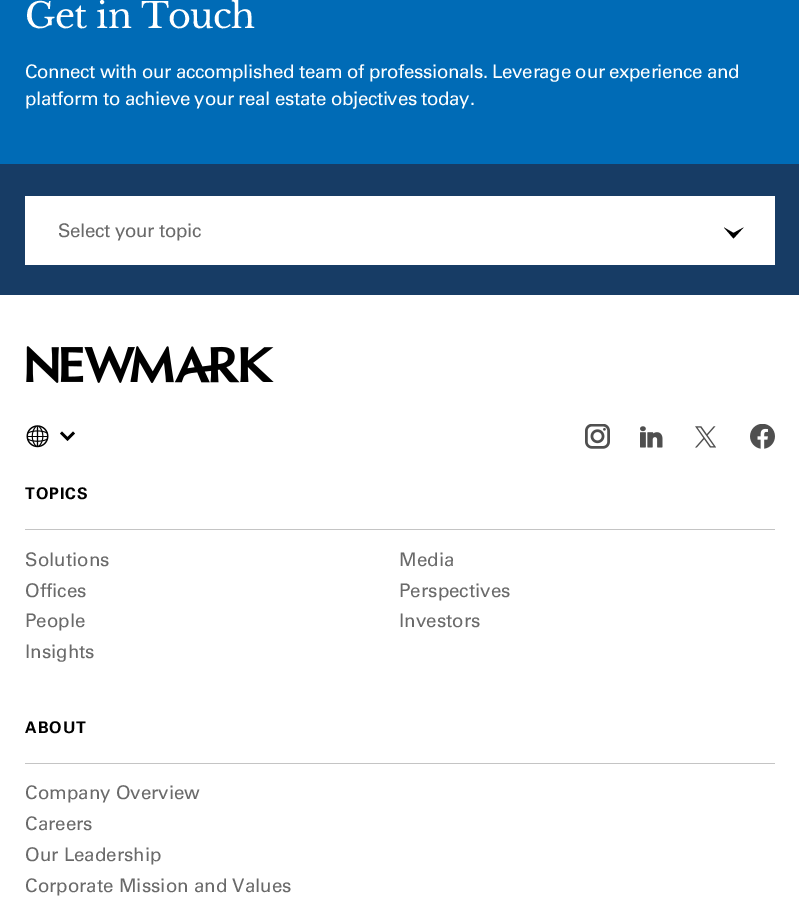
%!PS-Adobe-3.0
%%BoundingBox: 0 0 799 909
%%LanguageLevel: 3
%%Pages: 1
%%EndComments
%%BeginProlog
/setink { dup -16 bitshift 255 div exch dup -8 bitshift 255 and 255 div exch 255 and 255 div setrgbcolor } def
/usefont { [ exch dup neg 0 0 3 -1 roll 0 0 ] selectfont } def
/drawimage { 5 dict begin { /h /w /y /x /name } { exch def } forall
  gsave x y translate w h scale
  w h 8 [w 0 0 h 0 0] name (r) file false 3 colorimage grestore end } def
%%EndProlog
%%BeginSetup
<< /PageSize [799 909] >> setpagedevice
%%EndSetup
%%Page: 1 1
0 909 translate 1 -1 scale
4 setmiterlimit
16#FFFFFF setink
0 0 799 909 rectfill
16#006BB6 setink
0 0 799 164 rectfill
/LibreBaskerville-Regular 35 usefont
16#FFFFFF setink
25 28 moveto -0.6 0 (Get in Touch) ashow
/Univers-Regular 18.75 usefont
25 78 moveto -0.38 0 (Connect with our accomplished team of professionals. Leverage our experience and) ashow
25 105 moveto -0.38 0 (platform to achieve your real estate objectives today.) ashow
16#173C65 setink
0 164 799 131 rectfill
16#FFFFFF setink
25 196 750 69 rectfill
16#6A6A6A setink
58 237 moveto -0.38 0 (Select your topic) ashow
16#000000 setink
733.5 238.5 moveto 743.5 227.5 lineto 733.5 233 lineto 724 227.5 lineto closepath fill
(img1.raw) 26 346 248 37 drawimage
(img2.raw) 26 425 23 23 drawimage
2.5 setlinewidth
74 432.5 moveto 67.5 439 lineto 61 432.5 lineto stroke
(img3.raw) 585 424 25 25 drawimage
(img4.raw) 640 426 23 22 drawimage
(img5.raw) 695 426 21 22 drawimage
(img6.raw) 750 424 25 25 drawimage
/Univers-Bold 16 usefont
25 499 moveto 1 0 (TOPICS) ashow
16#C4C4C4 setink
25 529 750 1 rectfill
/Univers-Regular 18.75 usefont
16#6A6A6A setink
[
    [(Solutions) 25 566]
    [(Media) 399 566]
    [(Offices) 25 597]
    [(Perspectives) 399 597]
    [(People) 25 627]
    [(Investors) 399 627]
    [(Insights) 25 658]
] { aload pop moveto show } forall
/Univers-Bold 16 usefont
16#000000 setink
25 733 moveto 1 0 (ABOUT) ashow
16#C4C4C4 setink
25 763 750 1 rectfill
/Univers-Regular 18.75 usefont
16#6A6A6A setink
[
    [(Company Overview) 25 799]
    [(Careers) 25 830]
    [(Our Leadership) 25 861]
    [(Corporate Mission and Values) 25 892]
] { aload pop moveto show } forall
showpage
%%EOF
